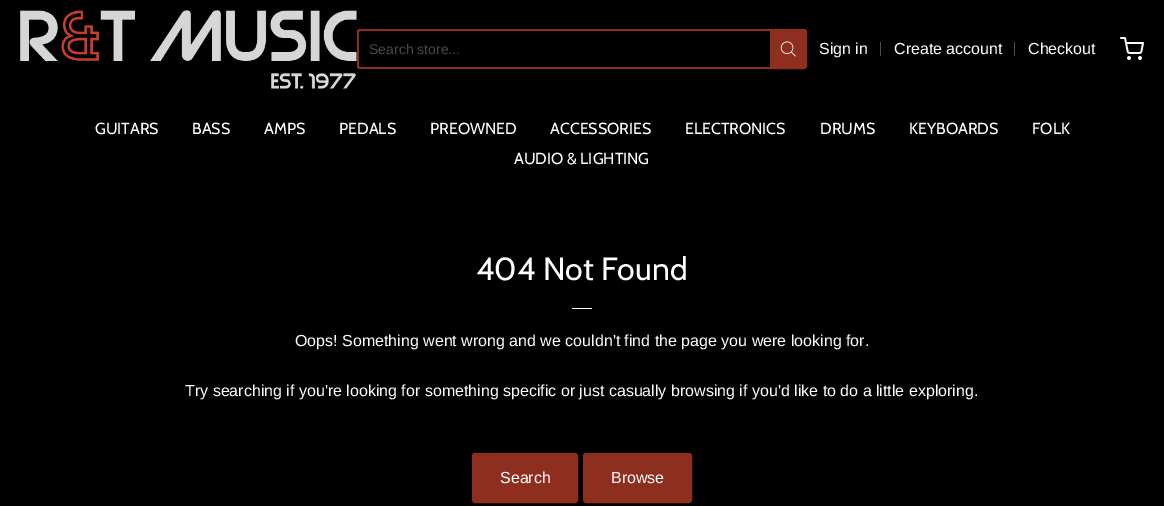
%!PS-Adobe-3.0
%%BoundingBox: 0 0 1164 506
%%LanguageLevel: 3
%%Pages: 1
%%EndComments
%%BeginProlog
/setink { dup -16 bitshift 255 div exch dup -8 bitshift 255 and 255 div exch 255 and 255 div setrgbcolor } def
/usefont { [ exch dup neg 0 0 3 -1 roll 0 0 ] selectfont } def
/rrect { 5 dict begin { /r /h /w /y /x } { exch def } forall
  x r add y moveto x w add y 2 copy h add r arct x w add y h add x 1 index r arct
  x y h add x y r arct x y 2 copy exch w add exch r arct closepath end } def
/drawimage { 5 dict begin { /h /w /y /x /name } { exch def } forall
  gsave x y translate w h scale
  w h 8 [w 0 0 h 0 0] name (r) file false 3 colorimage grestore end } def
%%EndProlog
%%BeginSetup
<< /PageSize [1164 506] >> setpagedevice
%%EndSetup
%%Page: 1 1
0 506 translate 1 -1 scale
4 setmiterlimit
16#000000 setink
0 0 1164 506 rectfill
(img1.raw) 20 10 337 79 drawimage
16#8E2E1F setink
360 29 moveto 770 29 lineto 770 69 lineto 360 69 lineto 358 69 357 68 357 66 curveto 357 32 lineto 357 30 358 29 360 29 curveto closepath 360 31 moveto 770 31 lineto 770 67 lineto 360 67 lineto 359 66 lineto 359 32 lineto closepath eofill
/LiberationSans-Regular 14 usefont
16#494949 setink
369 54 moveto (Search store...) show
16#8E2E1F setink
771 30 moveto 804 30 lineto 805 30 806 31 806 32 curveto 806 66 lineto 806 67 805 68 804 68 curveto 771 68 lineto closepath gsave fill grestore
2 setlinewidth
stroke
(img2.raw) 780 41 16 16 drawimage
/LiberationSans-Regular 16 usefont
16#FFFFFF setink
819 54 moveto (Sign in) show
16#4D4D4D setink
880 42 1 14 rectfill
16#FFFFFF setink
894 54 moveto (Create account) show
16#4D4D4D setink
1014 42 1 14 rectfill
16#FFFFFF setink
1028 54 moveto (Checkout) show
(img3.raw) 1120 37 24 23 drawimage
/Cabin-Regular 16 usefont
[
    [(GUITARS) 95 134]
    [(BASS) 192 134]
    [(AMPS) 264 134]
    [(PEDALS) 339 134]
    [(PREOWNED) 430 134]
    [(ACCESSORIES) 550 134]
    [(ELECTRONICS) 685 134]
    [(DRUMS) 820 134]
    [(KEYBOARDS) 909 134]
    [(FOLK) 1032 134]
    [(AUDIO & LIGHTING) 514 164]
] { aload pop moveto show } forall
/Cabin-Regular 32 usefont
476 280 moveto (404 Not Found) show
572 308 20 1 rectfill
/LiberationSans-Regular 16 usefont
295 346 moveto (Oops! Something went wrong and we couldn't find the page you were looking for.) show
185 396 moveto (Try searching if you're looking for something specific or just casually browsing if you'd like to do a little exploring.) show
16#8E2E1F setink
473 454 104 48 2 rrect gsave fill grestore
stroke
16#FFFFFF setink
500 483 moveto (Search) show
16#8E2E1F setink
584 454 107 48 2 rrect gsave fill grestore
stroke
16#FFFFFF setink
611 483 moveto (Browse) show
showpage
%%EOF
